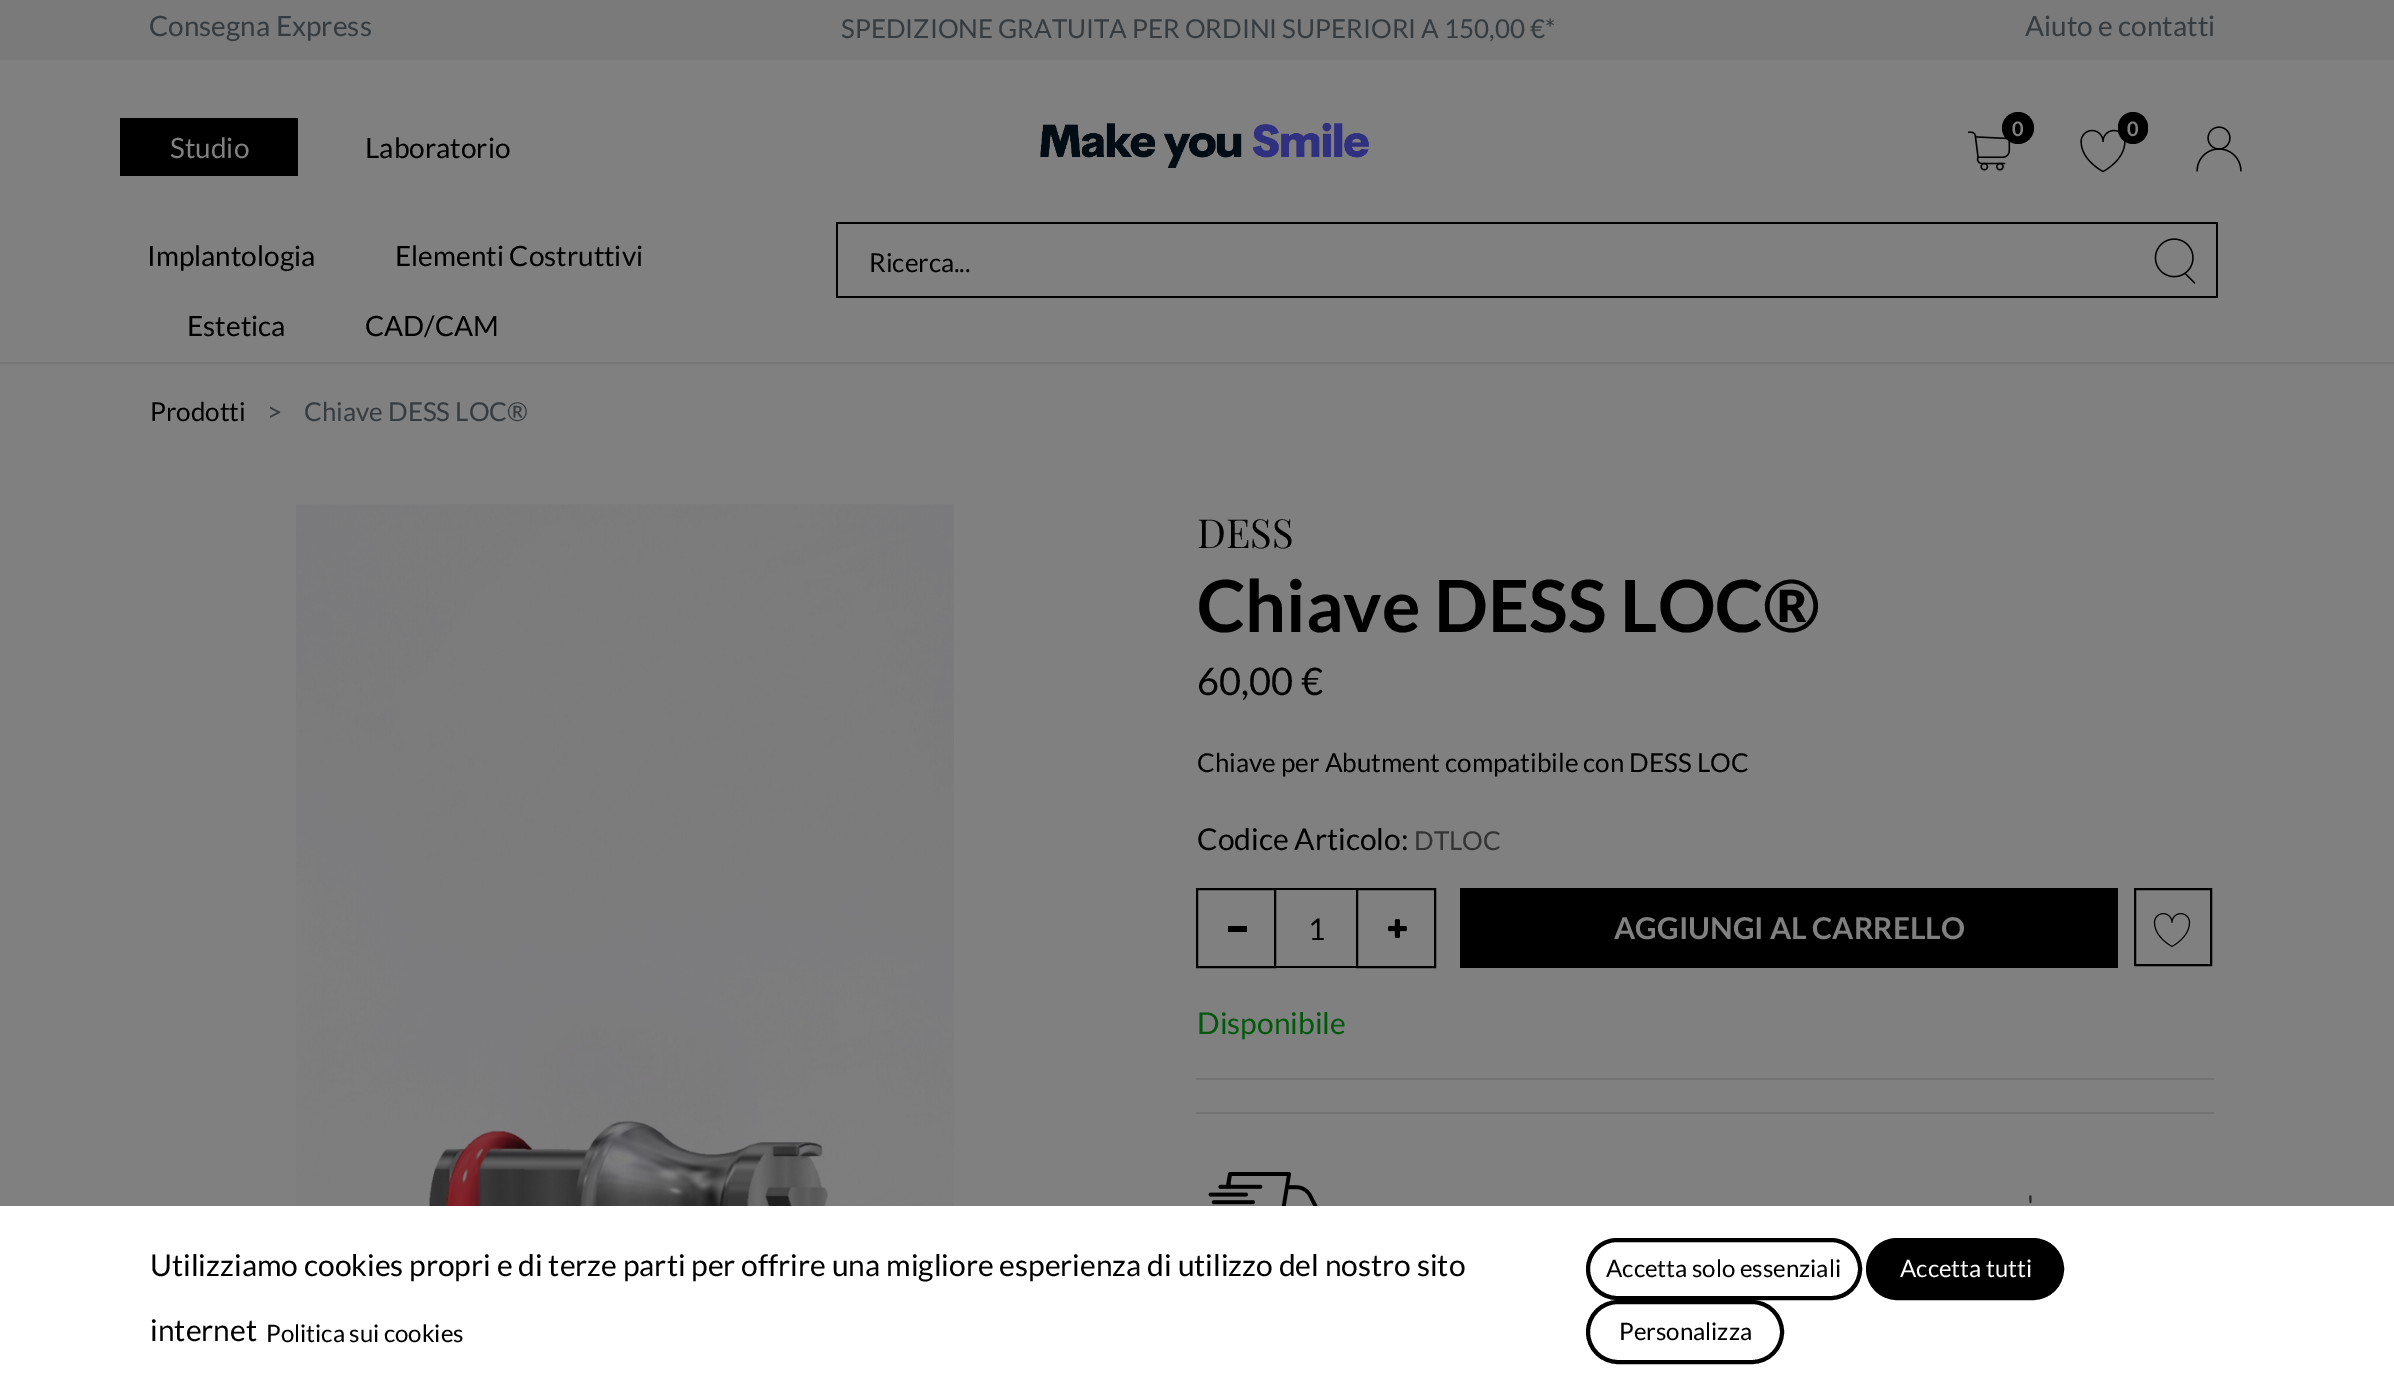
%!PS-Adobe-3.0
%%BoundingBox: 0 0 2394 1395
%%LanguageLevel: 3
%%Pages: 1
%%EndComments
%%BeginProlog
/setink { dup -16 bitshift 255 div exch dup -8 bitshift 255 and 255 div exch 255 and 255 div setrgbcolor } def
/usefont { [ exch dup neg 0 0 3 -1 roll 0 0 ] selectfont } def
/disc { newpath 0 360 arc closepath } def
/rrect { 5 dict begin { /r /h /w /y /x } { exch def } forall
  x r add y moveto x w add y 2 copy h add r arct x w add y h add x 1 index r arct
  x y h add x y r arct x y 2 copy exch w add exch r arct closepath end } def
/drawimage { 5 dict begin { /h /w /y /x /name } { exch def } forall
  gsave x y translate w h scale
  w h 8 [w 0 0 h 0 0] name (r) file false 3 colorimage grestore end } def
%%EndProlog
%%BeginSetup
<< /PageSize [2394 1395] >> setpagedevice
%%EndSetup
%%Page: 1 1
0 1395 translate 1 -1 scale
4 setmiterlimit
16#808080 setink
0 0 2394 1395 rectfill
16#7A7A7A setink
0 0 2394 60 rectfill
/Lato-Regular 28 usefont
16#363B3F setink
149 36 moveto (Consegna Express) show
/Lato-Regular 26 usefont
841 38 moveto (SPEDIZIONE GRATUITA PER ORDINI SUPERIORI A 150,00 €*) show
/Lato-Regular 28 usefont
2025 36 moveto (Aiuto e contatti) show
16#000000 setink
120 118 178 58 rectfill
16#808080 setink
170 158 moveto (Studio) show
16#000000 setink
365 158 moveto (Laboratorio) show
(img1.raw) 1040 123 329 45 drawimage
(img2.raw) 1967 131 44 40 drawimage
2018 128 16 disc fill
/Lato-Bold 20 usefont
16#808080 setink
2012 136 moveto (0) show
(img3.raw) 2080 129 46 44 drawimage
16#000000 setink
2118 112 30 32 15 rrect fill
16#808080 setink
2127 136 moveto (0) show
(img4.raw) 2196 126 46 46 drawimage
16#777777 setink
0 362 2394 2 rectfill
/Lato-Regular 28 usefont
16#000000 setink
[
    [(Implantologia) 147 266]
    [(Elementi Costruttivi) 395 266]
    [(Estetica) 187 336]
    [(CAD/CAM) 365 336]
] { aload pop moveto show } forall
[
    [836 222 1382 2 16#000000]
    [836 296 1300 2 16#000000]
    [836 222 2 76 16#000000]
] { aload pop setink rectfill } forall
/Lato-Regular 26 usefont
869 272 moveto (Ricerca...) show
2216 222 2 76 rectfill
2134 296 84 2 rectfill
(img5.raw) 2154 238 42 46 drawimage
150 421 moveto (Prodotti) show
16#363B3F setink
267 421 moveto (>) show
304 421 moveto (Chiave DESS LOC®) show
(img6.raw) 296 504 658 702 drawimage
/PlayfairDisplay-Regular 40 usefont
16#000000 setink
1197 548 moveto (DESS) show
/Lato-Bold 72 usefont
1197 632 moveto (Chiave DESS LOC®) show
/Lato-Regular 38 usefont
1197 695 moveto (60,00 €) show
/Lato-Regular 26 usefont
1197 772 moveto (Chiave per Abutment compatibile con DESS LOC) show
/Lato-Regular 30 usefont
1197 850 moveto (Codice Articolo:) show
/Lato-Regular 26 usefont
16#323335 setink
1414 850 moveto (DTLOC) show
16#000000 setink
2 setlinewidth
1197 889 78 78 rectstroke
[
    [1228 926 19 6 16#000000]
    [1276 888 80 2 16#000000]
    [1276 966 80 2 16#000000]
] { aload pop setink rectfill } forall
/Lato-Regular 30 usefont
1308 940 moveto (1) show
1357 889 78 78 rectstroke
(img7.raw) 1388 919 19 19 drawimage
1460 888 658 80 rectfill
/Lato-Bold 30 usefont
16#808080 setink
1614 939 moveto (AGGIUNGI AL CARRELLO) show
16#000000 setink
2135 889 76 76 rectstroke
(img8.raw) 2153 913 38 34 drawimage
/Lato-Regular 30 usefont
16#00590B setink
1197 1034 moveto (Disponibile) show
16#737373 setink
1196 1078 1018 2 rectfill
1196 1112 1018 2 rectfill
(img9.raw) 1208 1172 110 34 drawimage
16#272727 setink
2027 1217 moveto (') show
16#FFFFFF setink
0 1206 2394 189 rectfill
16#000000 setink
150 1276 moveto (Utilizziamo cookies propri e di terze parti per offrire una migliore esperienza di utilizzo del nostro sito) show
150 1341 moveto (internet) show
/Lato-Regular 24 usefont
266 1342 moveto (Politica sui cookies) show
4 setlinewidth
1588 1240 272 58 29 rrect stroke
1606 1277 moveto (Accetta solo essenziali) show
1868 1240 194 58 29 rrect gsave fill grestore
stroke
16#FFFFFF setink
1900 1277 moveto (Accetta tutti) show
16#000000 setink
1588 1302 194 60 30 rrect stroke
1619 1340 moveto (Personalizza) show
showpage
%%EOF
